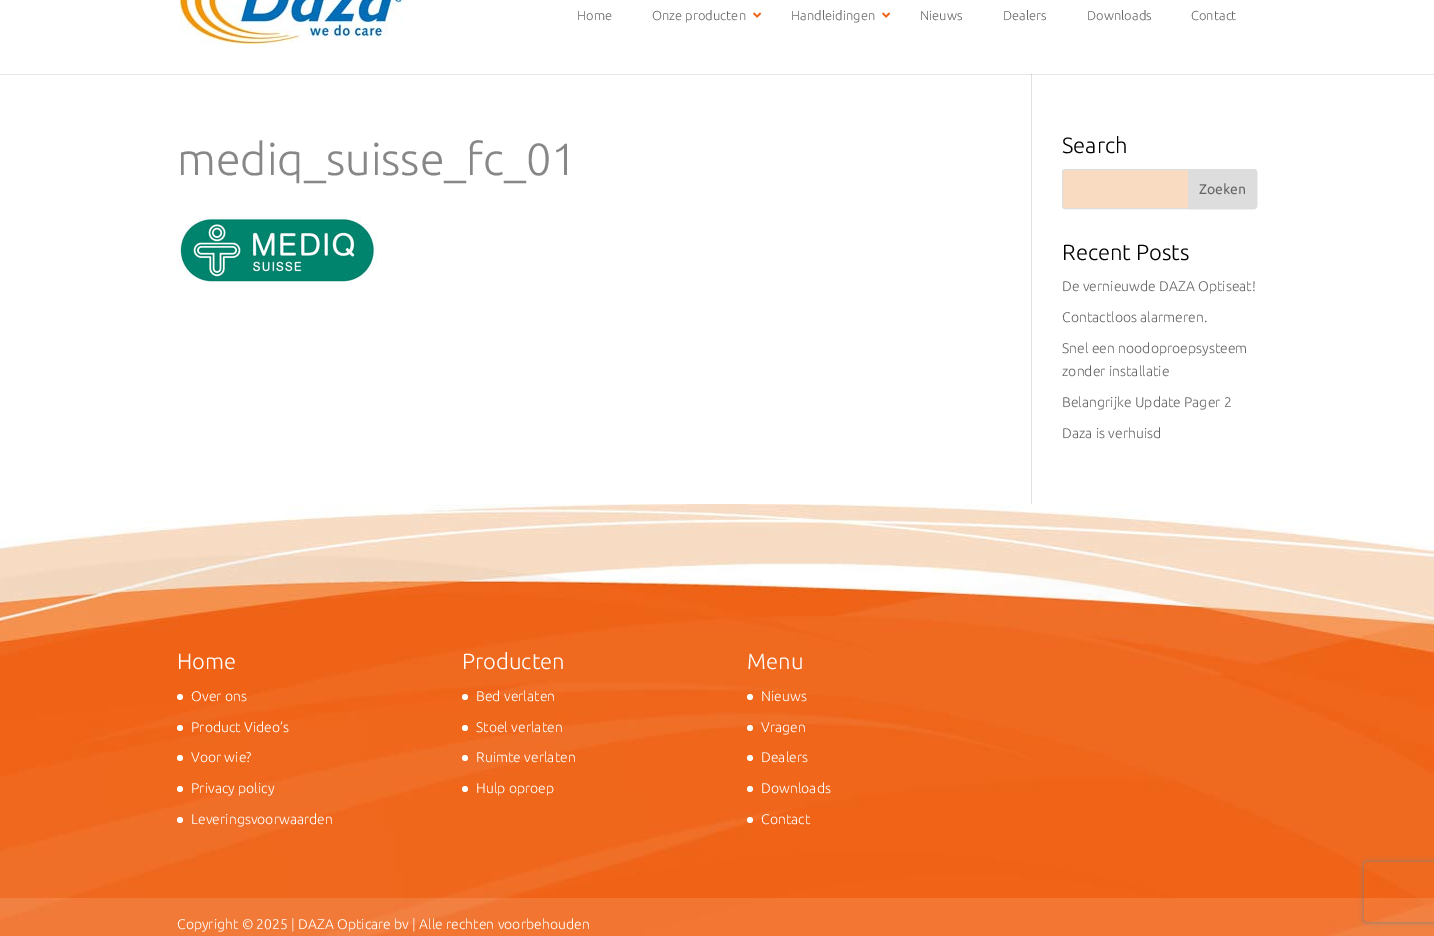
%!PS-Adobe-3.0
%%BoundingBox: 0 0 1434 936
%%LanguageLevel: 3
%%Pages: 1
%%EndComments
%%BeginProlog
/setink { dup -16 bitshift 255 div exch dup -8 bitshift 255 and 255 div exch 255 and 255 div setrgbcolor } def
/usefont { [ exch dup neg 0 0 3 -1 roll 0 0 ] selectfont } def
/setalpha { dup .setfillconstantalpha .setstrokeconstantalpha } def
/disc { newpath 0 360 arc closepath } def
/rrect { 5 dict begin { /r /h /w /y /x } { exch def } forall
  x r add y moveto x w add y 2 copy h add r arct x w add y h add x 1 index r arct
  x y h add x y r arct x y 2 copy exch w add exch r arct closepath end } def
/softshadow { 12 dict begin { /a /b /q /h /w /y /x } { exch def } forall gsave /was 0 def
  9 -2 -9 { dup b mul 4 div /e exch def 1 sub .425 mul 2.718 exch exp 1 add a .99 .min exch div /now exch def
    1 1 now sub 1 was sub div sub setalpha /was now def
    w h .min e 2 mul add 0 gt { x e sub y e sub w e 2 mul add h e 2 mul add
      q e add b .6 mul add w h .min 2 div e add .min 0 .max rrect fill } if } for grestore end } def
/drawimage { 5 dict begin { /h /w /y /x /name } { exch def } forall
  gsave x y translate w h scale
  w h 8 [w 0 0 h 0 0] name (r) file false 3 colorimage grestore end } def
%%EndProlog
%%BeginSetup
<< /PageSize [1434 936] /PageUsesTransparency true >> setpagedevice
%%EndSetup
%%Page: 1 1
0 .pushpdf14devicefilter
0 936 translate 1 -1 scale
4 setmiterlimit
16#FFFFFF setink
0 0 1434 936 rectfill
16#E6E6E6 setink
0 74 1434 1 rectfill
(img1.raw) 180 0 222 44 drawimage
/Ubuntu-Light 13 usefont
16#666666 setink
577 20 moveto (Home) show
652 20 moveto (Onze producten) show
(img2.raw) 753 12 9 6 drawimage
791 20 moveto (Handleidingen) show
(img2.raw) 882 12 9 6 drawimage
[
    [(Nieuws) 920 20]
    [(Dealers) 1003 20]
    [(Downloads) 1087 20]
    [(Contact) 1191 20]
] { aload pop moveto show } forall
16#E2E2E2 setink
1031 74 1 430 rectfill
16#CBCBCB setink
1031 74 1 1 rectfill
/Ubuntu-Light 45 usefont
16#878787 setink
177 175 moveto (mediq_suisse_fc_01) show
(img3.raw) 177 216 200 69 drawimage
/Ubuntu-Light 22 usefont
16#000000 setink
1062 153 moveto (Search) show
16#F9DBC1 setink
1062.5 169.5 194 39 2.5 rrect gsave fill grestore
16#DDDDDD setink
stroke
1188.5 169.5 moveto 1254 169.5 lineto 1255.5 169.5 1256.5 170.5 1256.5 172 curveto 1256.5 206 lineto 1256.5 207.5 1255.5 208.5 1254 208.5 curveto 1188.5 208.5 lineto closepath gsave fill grestore
stroke
/Ubuntu-Regular 14 usefont
16#666666 setink
1199 194 moveto (Zoeken) show
/Ubuntu-Light 22 usefont
16#000000 setink
1062 260 moveto (Recent Posts) show
/Ubuntu-Light 14 usefont
16#666666 setink
[
    [(De vernieuwde DAZA Optiseat!) 1062 291]
    [(Contactloos alarmeren.) 1062 322]
    [(Snel een noodoproepsysteem) 1062 353]
    [(zonder installatie) 1062 376]
    [(Belangrijke Update Pager 2) 1062 407]
    [(Daza is verhuisd) 1062 438]
] { aload pop moveto show } forall
(img4.raw) 0 504 1434 432 drawimage
/Ubuntu-Light 22 usefont
16#FFFFFF setink
177 669 moveto (Home) show
180 697 3 disc fill
/Ubuntu-Light 14 usefont
191 701 moveto (Over ons) show
180 728 3 disc fill
191 732 moveto (Product Video’s) show
180 758 3 disc fill
191 762 moveto (Voor wie?) show
180 789 3 disc fill
191 793 moveto (Privacy policy) show
180 820 3 disc fill
191 824 moveto (Leveringsvoorwaarden) show
/Ubuntu-Light 22 usefont
462 669 moveto (Producten) show
465 697 3 disc fill
/Ubuntu-Light 14 usefont
476 701 moveto (Bed verlaten) show
465 728 3 disc fill
476 732 moveto (Stoel verlaten) show
465 758 3 disc fill
476 762 moveto (Ruimte verlaten) show
465 789 3 disc fill
476 793 moveto (Hulp oproep) show
/Ubuntu-Light 22 usefont
747 669 moveto (Menu) show
750 697 3 disc fill
/Ubuntu-Light 14 usefont
761 701 moveto (Nieuws) show
750 728 3 disc fill
761 732 moveto (Vragen) show
750 758 3 disc fill
761 762 moveto (Dealers) show
750 789 3 disc fill
761 793 moveto (Downloads) show
750 820 3 disc fill
761 824 moveto (Contact) show
0.12 setalpha
0 898 1434 38 rectfill
1 setalpha
177 929 moveto (Copyright © 2025 | DAZA Opticare bv | Alle rechten voorbehouden) show
gsave
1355 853 moveto 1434 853 lineto 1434 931 lineto 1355 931 lineto closepath 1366 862 moveto 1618 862 lineto 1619 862 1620 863 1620 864 curveto 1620 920 lineto 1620 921 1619 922 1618 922 curveto 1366 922 lineto 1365 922 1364 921 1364 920 curveto 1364 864 lineto 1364 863 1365 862 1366 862 curveto closepath eoclip newpath
16#808080 setink
1364 862 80 60 2 2.5 1 softshadow
grestore
.poppdf14devicefilter showpage
%%EOF
